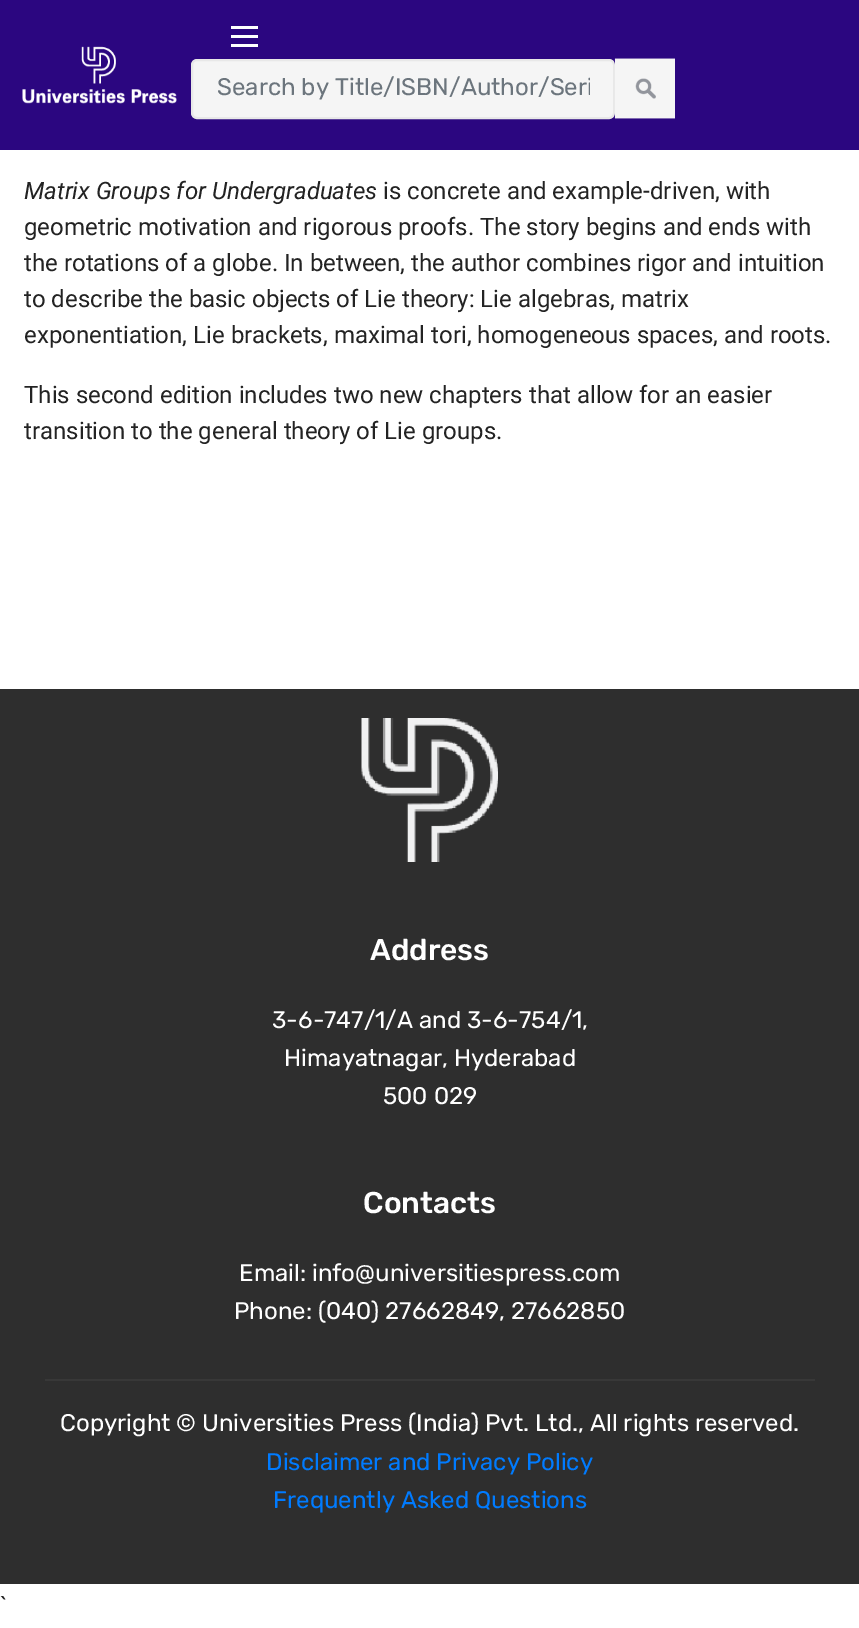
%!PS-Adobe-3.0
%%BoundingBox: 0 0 859 1628
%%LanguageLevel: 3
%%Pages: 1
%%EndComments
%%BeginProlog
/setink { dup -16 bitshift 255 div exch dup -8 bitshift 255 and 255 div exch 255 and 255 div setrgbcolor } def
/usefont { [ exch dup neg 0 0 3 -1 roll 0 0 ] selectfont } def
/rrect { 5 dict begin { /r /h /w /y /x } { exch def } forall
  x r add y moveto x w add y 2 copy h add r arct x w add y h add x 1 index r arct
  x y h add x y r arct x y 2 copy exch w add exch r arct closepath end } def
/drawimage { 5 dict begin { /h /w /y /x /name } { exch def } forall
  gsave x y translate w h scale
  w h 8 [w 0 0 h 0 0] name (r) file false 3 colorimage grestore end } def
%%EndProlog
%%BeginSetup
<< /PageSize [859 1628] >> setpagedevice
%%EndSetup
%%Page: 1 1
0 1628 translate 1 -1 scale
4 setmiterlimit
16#FFFFFF setink
0 0 859 1628 rectfill
16#2B0680 setink
0 0 859 150 rectfill
(img1.raw) 22 46 155 58 drawimage
[
    [231 44 27 3 16#FFFFFF]
    [231 35 27 3 16#FFFFFF]
    [231 26 27 3 16#FFFFFF]
] { aload pop setink rectfill } forall
16#F5F5F5 setink
192 60 422 58 5 rrect gsave fill grestore
16#E8E8E8 setink
2 setlinewidth
stroke
gsave
216 74 374 28 rectclip
/Rubik-Regular 24 usefont
16#6C757D setink
217 95 moveto (Search by Title/ISBN/Author/Seri) show
grestore
(img2.raw) 614 58 61 61 drawimage
/Roboto-Italic 24 usefont
16#232323 setink
24 199 moveto (Matrix Groups for Undergraduates) show
/Roboto-Regular 24 usefont
[
    [(is concrete and example-driven, with) 383 199]
    [(geometric motivation and rigorous proofs. The story begins and ends with) 24 235]
    [(the rotations of a globe. In between, the author combines rigor and intuition) 24 271]
    [(to describe the basic objects of Lie theory: Lie algebras, matrix) 24 307]
    [(exponentiation, Lie brackets, maximal tori, homogeneous spaces, and roots.) 24 343]
    [(This second edition includes two new chapters that allow for an easier) 24 403]
    [(transition to the general theory of Lie groups.) 24 439]
] { aload pop moveto show } forall
16#2E2E2E setink
0 689 859 895 rectfill
(img3.raw) 361 718 137 144 drawimage
/Rubik-Medium 30 usefont
16#FFFFFF setink
370 960 moveto (Address) show
/Rubik-Regular 24 usefont
[
    [(3-6-747/1/A and 3-6-754/1,) 272 1028]
    [(Himayatnagar, Hyderabad) 284 1066]
    [(500 029) 383 1104]
] { aload pop moveto show } forall
/Rubik-Medium 30 usefont
363 1213 moveto (Contacts) show
/Rubik-Regular 24 usefont
239 1281 moveto (Email: info@universitiespress.com) show
234 1319 moveto (Phone: \(040\) 27662849, 27662850) show
16#383838 setink
45 1379 770 2 rectfill
16#FFFFFF setink
60 1431 moveto (Copyright © Universities Press \(India\) Pvt. Ltd., All rights reserved.) show
16#007BFF setink
266 1470 moveto (Disclaimer and Privacy Policy) show
273 1508 moveto (Frequently Asked Questions) show
/Roboto-Regular 24 usefont
16#232323 setink
0 1614 moveto (`) show
showpage
%%EOF
